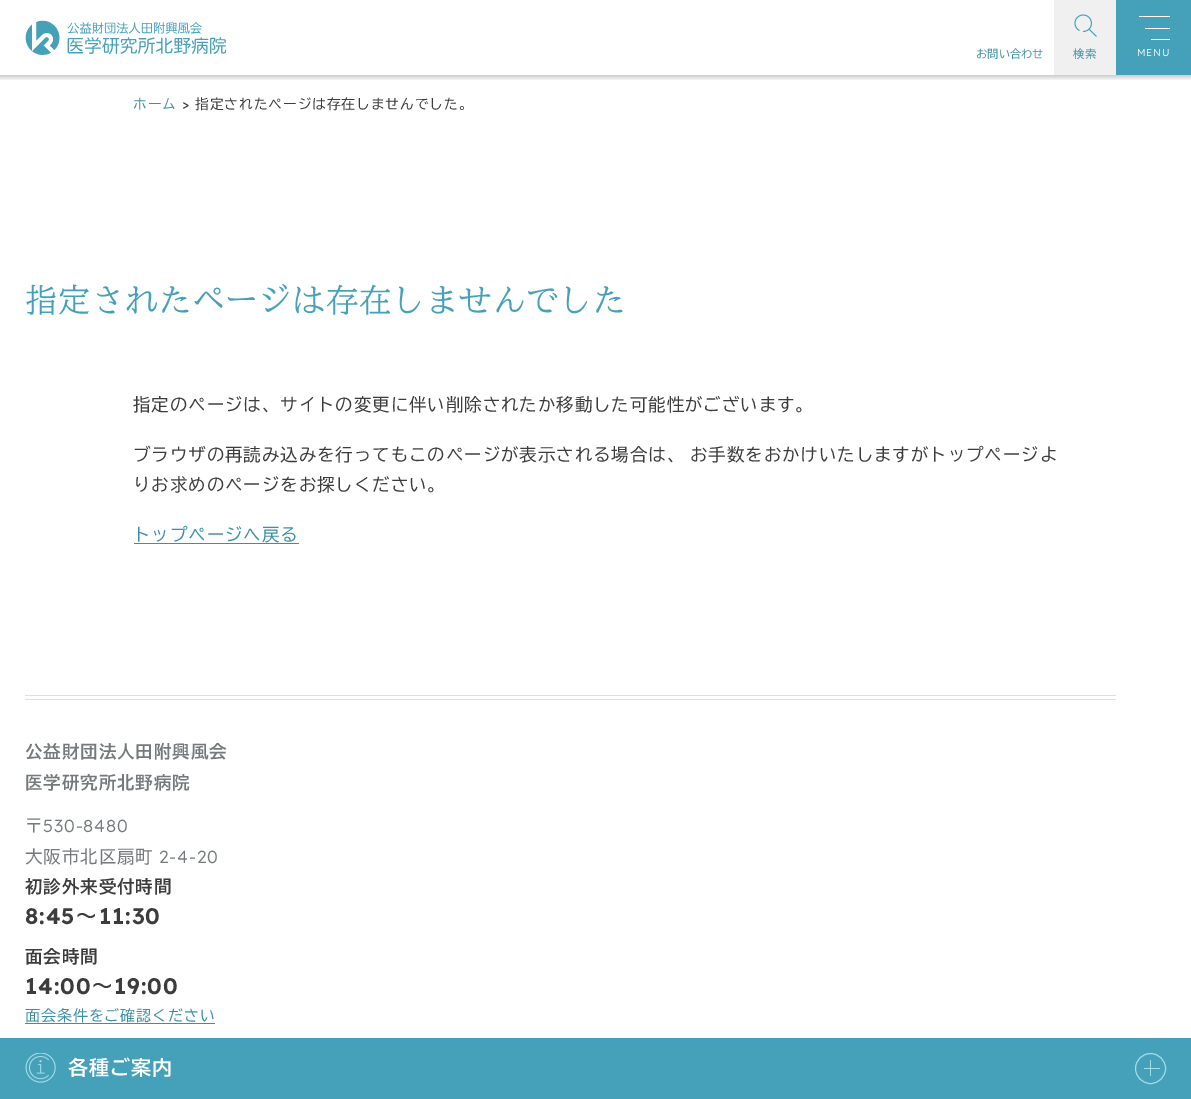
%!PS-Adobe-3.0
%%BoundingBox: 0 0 1191 1099
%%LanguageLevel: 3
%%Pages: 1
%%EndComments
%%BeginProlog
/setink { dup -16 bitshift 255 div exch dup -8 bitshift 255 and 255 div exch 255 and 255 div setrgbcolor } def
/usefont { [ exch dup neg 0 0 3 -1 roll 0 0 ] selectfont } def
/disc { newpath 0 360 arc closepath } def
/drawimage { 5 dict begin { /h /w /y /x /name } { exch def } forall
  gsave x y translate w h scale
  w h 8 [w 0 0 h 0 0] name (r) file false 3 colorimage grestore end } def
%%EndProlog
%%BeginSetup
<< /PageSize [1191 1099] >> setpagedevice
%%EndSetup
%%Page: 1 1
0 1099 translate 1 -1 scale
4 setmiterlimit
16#FFFFFF setink
0 0 1191 1099 rectfill
(img1.raw) 25 20 201 35 drawimage
/BIZUDGothic-Regular 11.25 usefont
16#3B90A6 setink
976 58 moveto (お問い合わせ) show
16#F0F0F0 setink
1054 0 62 75 rectfill
(img2.raw) 1074 14 23 23 drawimage
16#3B90A6 setink
1073 58 moveto 0.9 0 (検索) ashow
[
    [1116 0 75 75 16#44A1B9]
    [1139 16 31 1 16#FFFFFF]
    [1145 28 25 1 16#FFFFFF]
    [1151 39 19 1 16#FFFFFF]
] { aload pop setink rectfill } forall
/Lexend-Light 10 usefont
1137 56 moveto 0.9 0 (MENU) ashow
gsave 0 75 moveto 1191 75 lineto 1191 81 lineto 0 81 lineto closepath clip newpath
<< /ShadingType 2 /ColorSpace /DeviceRGB /Coords [596 75 596 81] /Extend [true true] /Function << /FunctionType 2 /Domain [0 1] /C0 [0.8 0.8 0.8] /C1 [1 1 1] /N 1 >> >> shfill grestore
/BIZUDGothic-Regular 13.75 usefont
16#3B90A6 setink
133 109 moveto 0.9 0 (ホーム) ashow
/Lexend-Regular 13.75 usefont
16#3C3C3C setink
182 109 moveto 0.9 0 (>) ashow
/BIZUDGothic-Regular 13.75 usefont
195 109 moveto 0.9 0 (指定されたページは存在しませんでした。) ashow
/BIZUDMincho-Regular 32.5 usefont
16#44A1B9 setink
25 312 moveto 0.9 0 (指定されたページは存在しませんでした) ashow
/BIZUDGothic-Regular 17.5 usefont
16#3C3C3C setink
133 411 moveto 0.9 0 (指定のページは、サイトの変更に伴い削除されたか移動した可能性がございます。) ashow
133 461 moveto 0.9 0 (ブラウザの再読み込みを行ってもこのページが表示される場合は、) ashow
690 461 moveto 0.9 0 (お手数をおかけいたしますがトップページよ) ashow
133 491 moveto 0.9 0 (りお求めのページをお探しください。) ashow
16#3B90A6 setink
133 541 moveto 0.9 0 (トップページへ戻る) ashow
[
    [134 543 165 1 16#3B90A6]
    [25 695 1091 1 16#E2DFD8]
    [25 699 1091 1 16#E2DFD8]
] { aload pop setink rectfill } forall
/BIZUDGothic-Bold 17.5 usefont
16#74797B setink
25 758 moveto 0.9 0 (公益財団法人田附興風会) ashow
25 789 moveto 0.9 0 (医学研究所北野病院) ashow
/BIZUDGothic-Regular 17.5 usefont
25 832 moveto 0.9 0 (〒) ashow
/Lexend-Light 17.5 usefont
43 832 moveto 0.9 0 (530-8480) ashow
/BIZUDGothic-Regular 17.5 usefont
25 863 moveto 0.9 0 (大阪市北区扇町) ashow
/Lexend-Light 17.5 usefont
159 863 moveto 0.9 0 (2-4-20) ashow
/BIZUDGothic-Bold 17.5 usefont
16#3C3C3C setink
25 893 moveto 0.9 0 (初診外来受付時間) ashow
/Lexend-SemiBold 22.5 usefont
25 924 moveto 0.9 0 (8:45) ashow
/BIZUDGothic-Bold 22.5 usefont
75 924 moveto 0.9 0 (～) ashow
/Lexend-SemiBold 22.5 usefont
99 924 moveto 0.9 0 (11:30) ashow
/BIZUDGothic-Bold 17.5 usefont
25 963 moveto 0.9 0 (面会時間) ashow
/Lexend-SemiBold 22.5 usefont
25 994 moveto 0.9 0 (14:00) ashow
/BIZUDGothic-Bold 22.5 usefont
91 994 moveto 0.9 0 (～) ashow
/Lexend-SemiBold 22.5 usefont
114 994 moveto 0.9 0 (19:00) ashow
/BIZUDGothic-Regular 15 usefont
16#3B90A6 setink
25 1021 moveto 0.9 0 (面会条件をご確認ください) ashow
25 1023 190 1 rectfill
16#44A1B9 setink
0 1038 1191 61 rectfill
(img3.raw) 25 1053 31 30 drawimage
/BIZUDGothic-Bold 20 usefont
16#FFFFFF setink
68 1075 moveto 0.9 0 (各種ご案内) ashow
16#A5DAE8 setink
1150.5 1068.5 15 disc stroke
1144 1068 16 1 rectfill
1150 1060 1 16 rectfill
showpage
%%EOF
